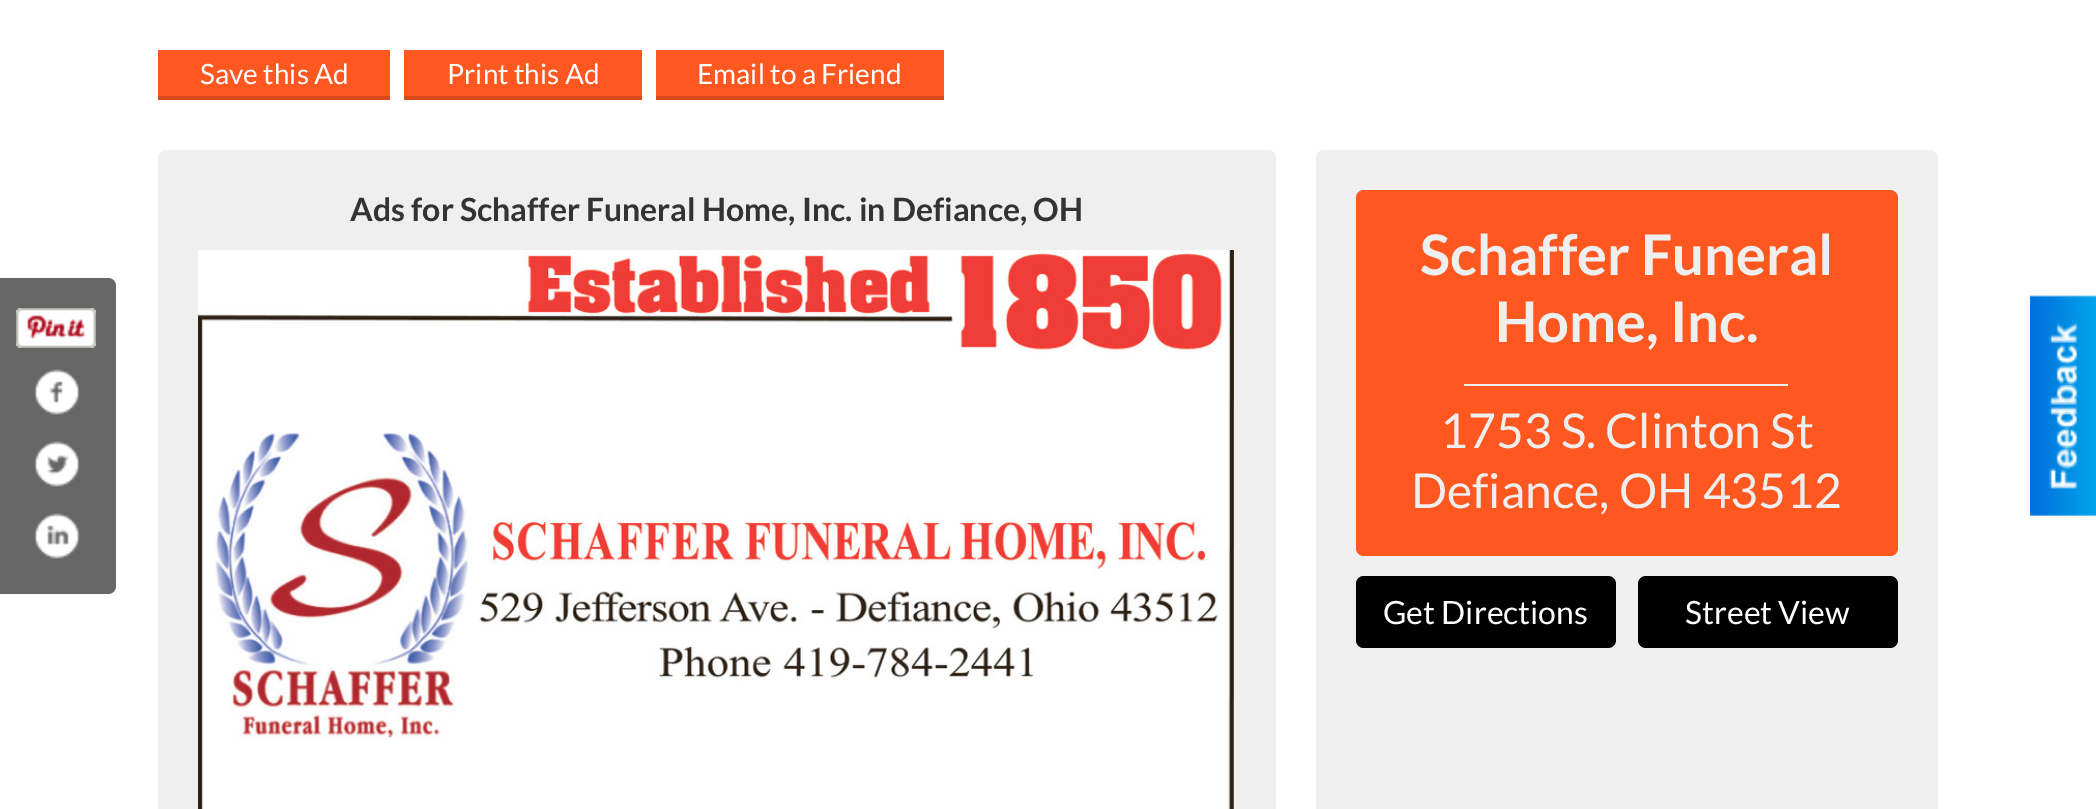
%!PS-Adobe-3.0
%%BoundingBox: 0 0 2096 809
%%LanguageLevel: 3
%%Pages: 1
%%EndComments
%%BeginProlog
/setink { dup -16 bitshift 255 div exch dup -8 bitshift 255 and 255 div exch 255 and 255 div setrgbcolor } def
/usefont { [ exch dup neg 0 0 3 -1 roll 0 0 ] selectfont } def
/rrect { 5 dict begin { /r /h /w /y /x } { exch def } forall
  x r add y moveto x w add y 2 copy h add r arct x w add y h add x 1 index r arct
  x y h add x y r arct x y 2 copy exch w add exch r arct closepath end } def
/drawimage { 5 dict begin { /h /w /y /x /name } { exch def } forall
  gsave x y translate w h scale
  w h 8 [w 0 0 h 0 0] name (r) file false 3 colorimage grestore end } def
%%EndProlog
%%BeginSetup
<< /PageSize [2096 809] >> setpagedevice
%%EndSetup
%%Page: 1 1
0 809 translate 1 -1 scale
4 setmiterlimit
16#FFFFFF setink
0 0 2096 809 rectfill
16#666666 setink
0 278 moveto 108 278 lineto 112.5 278 116 281.5 116 286 curveto 116 586 lineto 116 590.5 112.5 594 108 594 curveto 0 594 lineto closepath fill
(img1.raw) 16 308 80 40 drawimage
(img2.raw) 34 369 46 46 drawimage
(img3.raw) 34 441 46 46 drawimage
(img4.raw) 34 513 46 46 drawimage
16#FF5720 setink
158 50 232 46 rectfill
16#D94A1B setink
158 96 232 4 rectfill
/Lato-Regular 28 usefont
16#FFFFFF setink
200 84 moveto (Save this Ad) show
16#FF5720 setink
404 50 238 46 rectfill
16#D94A1B setink
404 96 238 4 rectfill
16#FFFFFF setink
447 84 moveto (Print this Ad) show
16#FF5720 setink
656 50 288 46 rectfill
16#D94A1B setink
656 96 288 4 rectfill
16#FFFFFF setink
697 84 moveto (Email to a Friend) show
16#EFEFEF setink
158 150 1118 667 8 rrect fill
/Lato-Bold 32 usefont
16#333333 setink
350 221 moveto (Ads for Schaffer Funeral Home, Inc. in Defiance, OH) show
(img5.raw) 198 250 1036 559 drawimage
16#EFEFEF setink
1316 150 622 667 8 rrect fill
16#FF5720 setink
1356 190 542 366 8 rrect fill
/Lato-Bold 56 usefont
16#EFEFEF setink
1420 275 moveto (Schaffer Funeral) show
1495 342 moveto (Home, Inc.) show
1464 384 324 2 rectfill
/Lato-Regular 48 usefont
1440 448 moveto (1753 S. Clinton St) show
1411 508 moveto (Defiance, OH 43512) show
16#000000 setink
1356 576 260 72 8 rrect fill
/Lato-Regular 32 usefont
16#FFFFFF setink
1383 624 moveto (Get Directions) show
16#000000 setink
1638 576 260 72 8 rrect fill
16#FFFFFF setink
1685 624 moveto (Street View) show
(img6.raw) 2030 295 66 221 drawimage
showpage
%%EOF
